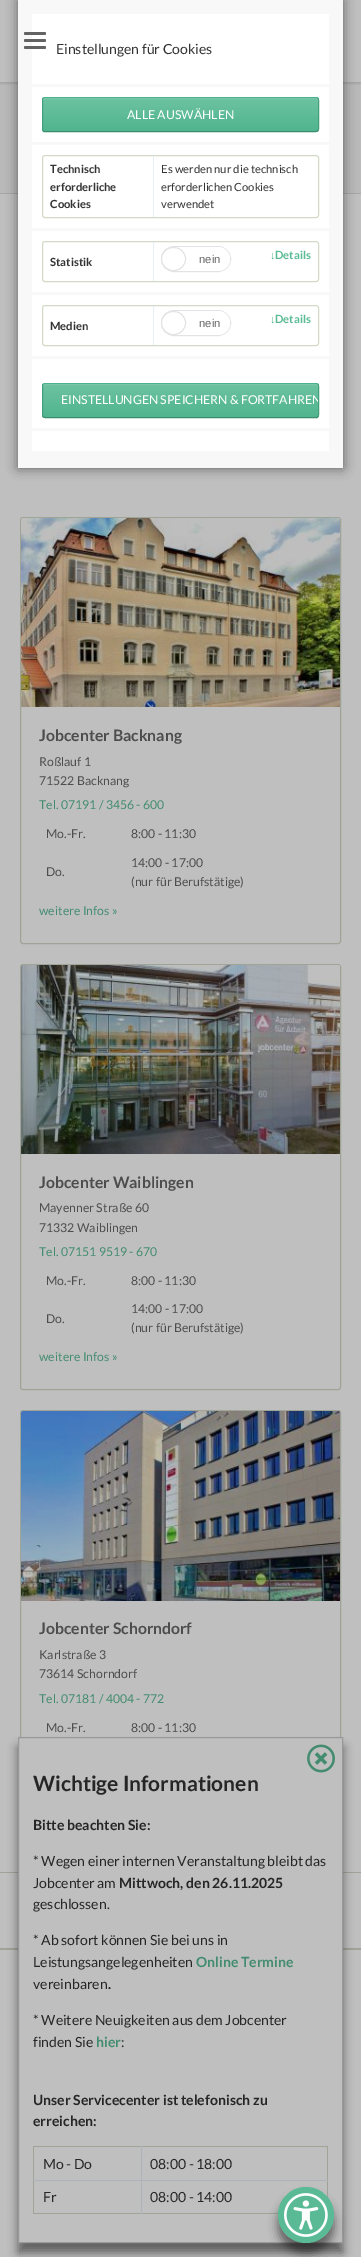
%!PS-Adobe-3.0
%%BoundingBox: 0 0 361 2257
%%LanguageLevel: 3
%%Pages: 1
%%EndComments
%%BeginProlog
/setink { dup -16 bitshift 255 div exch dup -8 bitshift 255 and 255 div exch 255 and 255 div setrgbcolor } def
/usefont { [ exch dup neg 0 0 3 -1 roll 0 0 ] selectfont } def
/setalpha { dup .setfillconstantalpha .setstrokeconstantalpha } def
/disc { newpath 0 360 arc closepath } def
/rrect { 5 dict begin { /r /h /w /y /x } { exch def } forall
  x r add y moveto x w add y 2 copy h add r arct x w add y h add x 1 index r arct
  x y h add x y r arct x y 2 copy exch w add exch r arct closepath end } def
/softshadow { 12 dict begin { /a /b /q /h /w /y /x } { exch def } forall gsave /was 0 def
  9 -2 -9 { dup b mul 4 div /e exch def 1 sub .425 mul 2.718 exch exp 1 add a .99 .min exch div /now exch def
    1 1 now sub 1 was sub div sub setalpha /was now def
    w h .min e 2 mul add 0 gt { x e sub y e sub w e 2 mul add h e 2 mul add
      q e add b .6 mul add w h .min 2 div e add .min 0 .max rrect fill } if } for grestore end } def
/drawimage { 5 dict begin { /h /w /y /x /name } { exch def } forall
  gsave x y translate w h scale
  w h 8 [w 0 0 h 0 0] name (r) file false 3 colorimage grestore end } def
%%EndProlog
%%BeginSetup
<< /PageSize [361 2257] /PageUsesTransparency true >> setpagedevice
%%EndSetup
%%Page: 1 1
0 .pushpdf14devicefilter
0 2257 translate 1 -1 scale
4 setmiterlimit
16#BFBFBF setink
0 0 361 2257 rectfill
16#B9B9B9 setink
0 83 361 110 rectfill
gsave
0 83 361 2 rectclip
16#000000 setink
0 1 361 83 0 1 0.1 softshadow
grestore
16#A7A7A7 setink
0 82 361 1 rectfill
0 193 361 1 rectfill
16#000000 setink
18 0 325 468 0 6 0.5 softshadow
16#F8F8F8 setink
18 0 325 468 rectfill
16#FFFFFF setink
32 14 297 70 rectfill
16#636363 setink
24 46 22 3 1.5 rrect fill
24 39 22 3 1.5 rrect fill
24 32 22 3 1.5 rrect fill
/Lato-Regular 14 usefont
16#333333 setink
56 54 moveto (Einstellungen für Cookies) show
16#FFFFFF setink
32 87 297 55 rectfill
gsave
42 97 277 35 3 rrect clip newpath
gsave 42 98 moveto 319 98 lineto 319 131 lineto 42 131 lineto closepath clip newpath
<< /ShadingType 2 /ColorSpace /DeviceRGB /Coords [181 98 181 131] /Extend [true true] /Function << /FunctionType 2 /Domain [0 1] /C0 [0.427 0.761 0.631] /C1 [0.314 0.71 0.561] /N 1 >> >> shfill grestore
grestore
16#8CCEB5 setink
45 99 moveto 316 99 lineto 317 99 318 100 318 101 curveto 318 99 lineto 316 98 lineto 45 98 lineto 43 98 43 100 43 101 curveto 43 100 44 99 45 99 curveto closepath fill
16#4AB18A setink
43 98 moveto 45 97.5 lineto 317 97.5 lineto 318 98 lineto stroke
16#439F7C setink
318 98 moveto 318 98.5 318.5 99.5 318.5 100 curveto 318.5 129 lineto 318.5 129.5 318 130.5 318 131 curveto stroke
16#3B8D6E setink
318 131 moveto 316 131.5 lineto 44 131.5 lineto 43 131 lineto stroke
16#439F7C setink
43 131 moveto 43 130.5 42.5 129.5 42.5 129 curveto 42.5 100 lineto 42.5 99.5 43 98.5 43 98 curveto stroke
/Lato-Regular 12.25 usefont
16#FFFFFF setink
127 119 moveto (ALLE AUSWÄHLEN) show
32 145 297 83 rectfill
16#D4DAC8 setink
42.5 155.5 276 62 2.5 rrect stroke
/Lato-Bold 11.25 usefont
16#333333 setink
[
    [(Technisch) 50 173]
    [(erforderliche) 50 191]
    [(Cookies) 50 208]
] { aload pop moveto show } forall
16#E6EFF5 setink
153 156 1 61 rectfill
/Lato-Regular 11.25 usefont
16#333333 setink
[
    [(Es werden nur die technisch) 161 173]
    [(erforderlichen Cookies) 161 191]
    [(verwendet) 161 208]
] { aload pop moveto show } forall
16#FFFFFF setink
32 231 297 61 rectfill
16#D4DAC8 setink
42.5 241.5 276 40 2.5 rrect stroke
/Lato-Bold 11.25 usefont
16#333333 setink
50 266 moveto (Statistik) show
16#E6EFF5 setink
153 242 1 39 rectfill
16#E3E3E3 setink
161.5 246.5 69 25 12.5 rrect stroke
16#FFFFFF setink
162 247 68 24 12 rrect fill
161.5 247.5 24 23 11.5 rrect gsave fill grestore
16#E3E3E3 setink
stroke
/LiberationSans-Regular 11.25 usefont
16#666666 setink
199 263 moveto (nein) show
/LiberationSans-Bold 11.25 usefont
16#5BBA96 setink
270 259 moveto (↓) show
/Lato-Bold 11.25 usefont
275 259 moveto (Details) show
16#FFFFFF setink
32 295 297 61 rectfill
16#D4DAC8 setink
42.5 305.5 276 40 2.5 rrect stroke
16#333333 setink
50 330 moveto (Medien) show
16#E6EFF5 setink
153 306 1 39 rectfill
16#E3E3E3 setink
161.5 310.5 69 25 12.5 rrect stroke
16#FFFFFF setink
162 311 68 24 12 rrect fill
161.5 311.5 24 23 11.5 rrect gsave fill grestore
16#E3E3E3 setink
stroke
/LiberationSans-Regular 11.25 usefont
16#666666 setink
199 327 moveto (nein) show
/LiberationSans-Bold 11.25 usefont
16#5BBA96 setink
270 323 moveto (↓) show
/Lato-Bold 11.25 usefont
275 323 moveto (Details) show
16#FFFFFF setink
32 359 297 69 rectfill
gsave
42 383 277 35 3 rrect clip newpath
gsave 42 384 moveto 319 384 lineto 319 417 lineto 42 417 lineto closepath clip newpath
<< /ShadingType 2 /ColorSpace /DeviceRGB /Coords [181 384 181 417] /Extend [true true] /Function << /FunctionType 2 /Domain [0 1] /C0 [0.427 0.761 0.631] /C1 [0.314 0.71 0.561] /N 1 >> >> shfill grestore
grestore
16#8CCEB5 setink
45 385 moveto 316 385 lineto 317 385 318 386 318 387 curveto 318 385 lineto 316 384 lineto 45 384 lineto 43 384 43 386 43 387 curveto 43 386 44 385 45 385 curveto closepath fill
16#4AB18A setink
43 384 moveto 45 383.5 lineto 317 383.5 lineto 318 384 lineto stroke
16#439F7C setink
318 384 moveto 318 384.5 318.5 385.5 318.5 386 curveto 318.5 415 lineto 318.5 415.5 318 416.5 318 417 curveto stroke
16#3B8D6E setink
318 417 moveto 317 417.5 lineto 225.5 417.5 lineto 45 417.5 lineto 43 417 lineto stroke
16#439F7C setink
43 417 moveto 43 416.5 42.5 415.5 42.5 415 curveto 42.5 386 lineto 42.5 385.5 43 384.5 43 384 curveto stroke
gsave
43 384 275 33 2 rrect clip newpath
/Lato-Regular 12.25 usefont
16#FFFFFF setink
61 404 moveto (EINSTELLUNGEN SPEICHERN & FORTFAHREN) show
grestore
16#FFFFFF setink
32 431 297 20 rectfill
16#9FA496 setink
20.5 517.5 320 426 2.5 rrect stroke
(img1.raw) 21 518 319 189 drawimage
/Lato-Bold 15.75 usefont
16#4D4D4D setink
39 741 moveto (Jobcenter Backnang) show
/Lato-Regular 12.25 usefont
39 766 moveto (Roßlauf 1) show
39 785 moveto (71522 Backnang) show
16#448C71 setink
39 809 moveto (Tel. 07191 / 3456 - 600) show
16#4D4D4D setink
[
    [(Mo.-Fr.) 46 838]
    [(8:00 - 11:30) 131 838]
    [(Do.) 46 876]
    [(14:00 - 17:00) 131 867]
    [(\(nur für Berufstätige\)) 131 886]
] { aload pop moveto show } forall
16#448C71 setink
39 915 moveto (weitere Infos ») show
16#9FA496 setink
20.5 964.5 320 425 2.5 rrect stroke
(img2.raw) 21 965 319 189 drawimage
/Lato-Bold 15.75 usefont
16#4D4D4D setink
39 1188 moveto (Jobcenter Waiblingen) show
/Lato-Regular 12.25 usefont
39 1212 moveto (Mayenner Straße 60) show
39 1232 moveto (71332 Waiblingen) show
16#448C71 setink
39 1256 moveto (Tel. 07151 9519 - 670) show
16#4D4D4D setink
[
    [(Mo.-Fr.) 46 1285]
    [(8:00 - 11:30) 131 1285]
    [(Do.) 46 1323]
    [(14:00 - 17:00) 131 1313]
    [(\(nur für Berufstätige\)) 131 1332]
] { aload pop moveto show } forall
16#448C71 setink
39 1361 moveto (weitere Infos ») show
16#9FA496 setink
20.5 1410.5 320 426 2.5 rrect stroke
(img3.raw) 21 1411 319 190 drawimage
/Lato-Bold 15.75 usefont
16#4D4D4D setink
39 1634 moveto (Jobcenter Schorndorf) show
/Lato-Regular 12.25 usefont
39 1659 moveto (Karlstraße 3) show
39 1678 moveto (73614 Schorndorf) show
16#448C71 setink
39 1703 moveto (Tel. 07181 / 4004 - 772) show
16#4D4D4D setink
46 1732 moveto (Mo.-Fr.) show
131 1732 moveto (8:00 - 11:30) show
16#9FA496 setink
0 1872 361 1 rectfill
0 1948 361 2 rectfill
16#000000 setink
18 1747 325 506 0 5 0.5 softshadow
16#BFBFBF setink
18.5 1737.5 moveto 342.5 1737.5 lineto 342.5 2242.5 lineto 18.5 2242.5 lineto closepath gsave fill grestore
16#999999 setink
stroke
[
    [33 2146 295 1 16#9FA496]
    [327 2146 1 52 16#9FA496]
    [33 2213 246 1 16#9FA496]
] { aload pop setink rectfill } forall
16#000000 setink
278 2197 56 56 28 5 0.5 softshadow
16#5BBA96 setink
306 2215 28 disc fill
(img4.raw) 284 2193 44 44 drawimage
(img5.raw) 307 1744 28 29 drawimage
/Lato-Bold 21 usefont
16#262626 setink
33 1791 moveto (Wichtige Informationen) show
/Lato-Bold 14 usefont
33 1830 moveto (Bitte beachten Sie:) show
/Lato-Regular 14 usefont
33 1866 moveto (* Wegen einer internen Veranstaltung bleibt das) show
33 1888 moveto (Jobcenter am) show
/Lato-Bold 14 usefont
119 1888 moveto (Mittwoch, den 26.11.2025) show
/Lato-Regular 14 usefont
[
    [(geschlossen.) 33 1909]
    [(* Ab sofort können Sie bei uns in) 33 1945]
    [(Leistungsangelegenheiten) 33 1967]
] { aload pop moveto show } forall
/Lato-Bold 14 usefont
16#448C71 setink
196 1967 moveto (Online Termine) show
/Lato-Regular 14 usefont
16#262626 setink
33 1989 moveto (vereinbaren) show
/Lato-Bold 14 usefont
108 1989 moveto (.) show
/Lato-Regular 14 usefont
33 2025 moveto (* Weitere Neuigkeiten aus dem Jobcenter) show
33 2047 moveto (finden Sie) show
/Lato-Bold 14 usefont
16#448C71 setink
96 2047 moveto (hier) show
/Lato-Regular 14 usefont
16#262626 setink
121 2047 moveto (:) show
/Lato-Bold 14 usefont
33 2105 moveto (Unser Servicecenter ist telefonisch zu) show
33 2126 moveto (erreichen:) show
16#9FA496 setink
33 2146 1 68 rectfill
/Lato-Regular 14 usefont
16#262626 setink
43 2169 moveto (Mo - Do) show
[
    [141 2180 187 1 16#ADB3B8]
    [141 2180 1 34 16#ADB3B8]
    [33 2180 109 1 16#ADB3B8]
    [141 2146 1 35 16#ADB3B8]
] { aload pop setink rectfill } forall
16#262626 setink
[
    [(08:00 - 18:00) 150 2169]
    [(Fr) 43 2202]
    [(08:00 - 14:00) 150 2202]
] { aload pop moveto show } forall
.poppdf14devicefilter showpage
%%EOF
